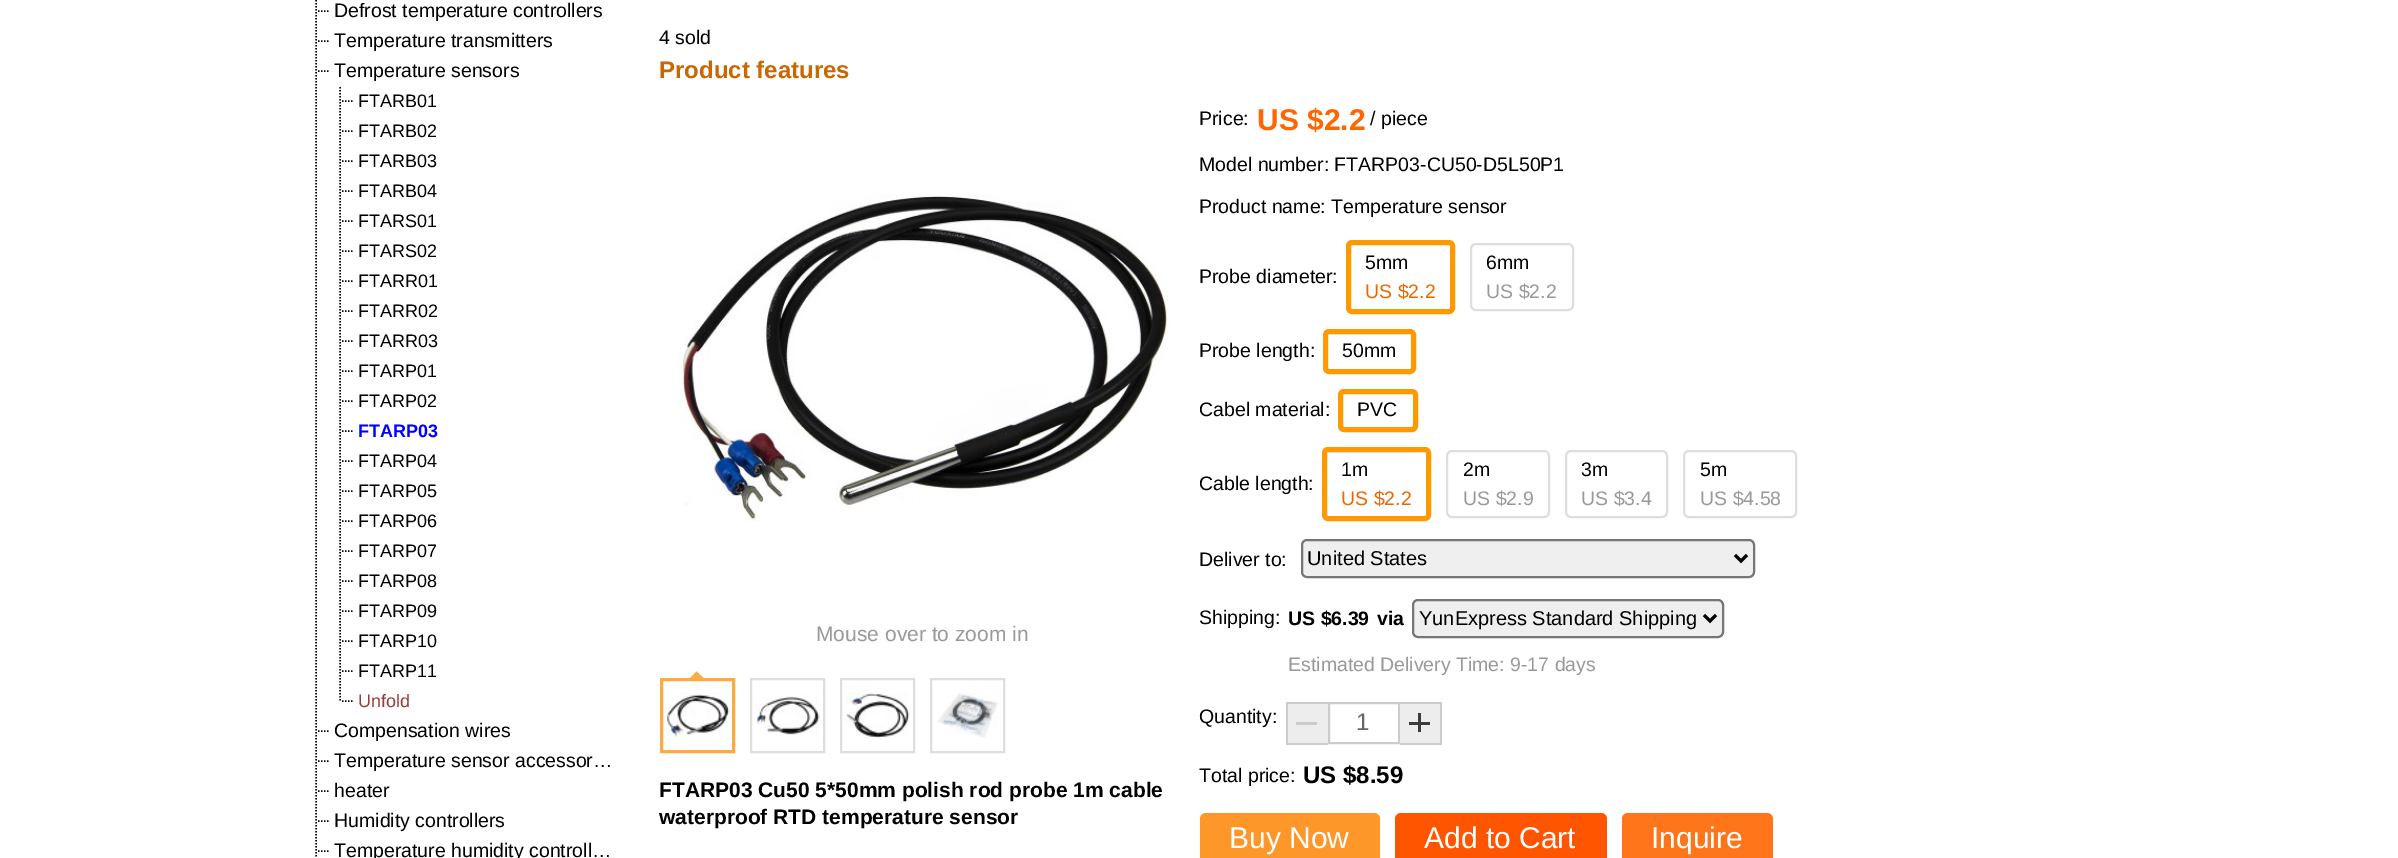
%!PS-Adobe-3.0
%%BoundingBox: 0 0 2398 858
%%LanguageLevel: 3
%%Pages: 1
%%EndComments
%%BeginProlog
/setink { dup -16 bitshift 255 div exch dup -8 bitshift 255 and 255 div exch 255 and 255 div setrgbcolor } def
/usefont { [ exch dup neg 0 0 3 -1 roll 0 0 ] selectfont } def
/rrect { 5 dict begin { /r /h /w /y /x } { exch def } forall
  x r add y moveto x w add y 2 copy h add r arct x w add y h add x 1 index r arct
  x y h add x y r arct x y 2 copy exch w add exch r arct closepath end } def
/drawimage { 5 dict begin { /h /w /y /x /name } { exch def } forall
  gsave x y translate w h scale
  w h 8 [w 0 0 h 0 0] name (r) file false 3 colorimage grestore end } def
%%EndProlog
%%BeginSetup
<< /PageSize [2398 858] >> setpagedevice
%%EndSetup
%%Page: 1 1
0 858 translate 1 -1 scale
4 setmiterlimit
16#FFFFFF setink
0 0 2398 858 rectfill
16#000000 setink
1.5 setlinewidth
[1.5 1.5] 0 setdash
316 -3 moveto 316 27 lineto 318 11 moveto 330 11 lineto 316 27 moveto 316 57 lineto 318 41 moveto 330 41 lineto stroke
/LiberationSans-Regular 19.5 usefont
334 17 moveto (Defrost temperature controllers) show
334 47 moveto (Temperature transmitters) show
316 57 moveto 316 87 lineto 318 71 moveto 330 71 lineto 316 87 moveto 316 117 lineto 340 87 moveto 340 117 lineto 342 101 moveto 354 101 lineto stroke
334 77 moveto (Temperature sensors) show
/LiberationSans-Regular 18 usefont
358 107 moveto (FTARB01) show
316 117 moveto 316 147 lineto 340 117 moveto 340 147 lineto 342 131 moveto 354 131 lineto 316 147 moveto 316 177 lineto 340 147 moveto 340 177 lineto 342 161 moveto 354 161 lineto stroke
358 137 moveto (FTARB02) show
358 167 moveto (FTARB03) show
316 177 moveto 316 207 lineto 340 177 moveto 340 207 lineto 342 191 moveto 354 191 lineto 316 207 moveto 316 237 lineto 340 207 moveto 340 237 lineto 342 221 moveto 354 221 lineto stroke
358 197 moveto (FTARB04) show
358 227 moveto (FTARS01) show
316 237 moveto 316 267 lineto 340 237 moveto 340 267 lineto 342 251 moveto 354 251 lineto 316 267 moveto 316 297 lineto 340 267 moveto 340 297 lineto 342 281 moveto 354 281 lineto stroke
358 257 moveto (FTARS02) show
358 287 moveto (FTARR01) show
316 297 moveto 316 327 lineto 340 297 moveto 340 327 lineto 342 311 moveto 354 311 lineto 316 327 moveto 316 357 lineto 340 327 moveto 340 357 lineto 342 341 moveto 354 341 lineto stroke
358 317 moveto (FTARR02) show
358 347 moveto (FTARR03) show
316 357 moveto 316 387 lineto 340 357 moveto 340 387 lineto 342 371 moveto 354 371 lineto 316 387 moveto 316 417 lineto 340 387 moveto 340 417 lineto 342 401 moveto 354 401 lineto stroke
358 377 moveto (FTARP01) show
358 407 moveto (FTARP02) show
316 417 moveto 316 447 lineto 340 417 moveto 340 447 lineto 342 431 moveto 354 431 lineto 316 447 moveto 316 477 lineto 340 447 moveto 340 477 lineto 342 461 moveto 354 461 lineto stroke
/LiberationSans-Bold 18 usefont
16#0000FF setink
358 437 moveto (FTARP03) show
/LiberationSans-Regular 18 usefont
16#000000 setink
358 467 moveto (FTARP04) show
316 477 moveto 316 507 lineto 340 477 moveto 340 507 lineto 342 491 moveto 354 491 lineto 316 507 moveto 316 537 lineto 340 507 moveto 340 537 lineto 342 521 moveto 354 521 lineto stroke
358 497 moveto (FTARP05) show
358 527 moveto (FTARP06) show
316 537 moveto 316 567 lineto 340 537 moveto 340 567 lineto 342 551 moveto 354 551 lineto 316 567 moveto 316 597 lineto 340 567 moveto 340 597 lineto 342 581 moveto 354 581 lineto stroke
358 557 moveto (FTARP07) show
358 587 moveto (FTARP08) show
316 597 moveto 316 627 lineto 340 597 moveto 340 627 lineto 342 611 moveto 354 611 lineto 316 627 moveto 316 657 lineto 340 627 moveto 340 657 lineto 342 641 moveto 354 641 lineto stroke
358 617 moveto (FTARP09) show
358 647 moveto (FTARP10) show
316 657 moveto 316 687 lineto 340 657 moveto 340 687 lineto 342 671 moveto 354 671 lineto 316 687 moveto 316 717 lineto 340 687 moveto 340 702 lineto 342 701 moveto 354 701 lineto stroke
358 677 moveto (FTARP11) show
16#963C3C setink
358 707 moveto (Unfold) show
16#000000 setink
316 717 moveto 316 747 lineto 318 731 moveto 330 731 lineto 316 747 moveto 316 777 lineto 318 761 moveto 330 761 lineto stroke
/LiberationSans-Regular 19.5 usefont
334 737 moveto (Compensation wires) show
334 767 moveto (Temperature sensor accessor…) show
316 777 moveto 316 807 lineto 318 791 moveto 330 791 lineto 316 807 moveto 316 837 lineto 318 821 moveto 330 821 lineto stroke
334 797 moveto (heater) show
334 827 moveto (Humidity controllers) show
316 837 moveto 316 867 lineto 318 851 moveto 330 851 lineto stroke
334 857 moveto (Temperature humidity controll…) show
659 44 moveto (4 sold) show
/LiberationSans-Bold 24 usefont
16#CC6600 setink
659 78 moveto (Product features) show
(img1.raw) 678 194 492 328 drawimage
/LiberationSans-Regular 21 usefont
16#999999 setink
816 641 moveto (Mouse over to zoom in) show
gsave
660 663 525 15 rectclip
16#FCAB42 setink
696.5 671.5 moveto 703.5 678 lineto 696.5 684.5 lineto 690 678 lineto closepath fill
grestore
16#FCAB42 setink
3 setlinewidth
[] 0 setdash
661.5 679.5 72 72 rectstroke
(img2.raw) 664 693 66 53 drawimage
16#DEDEDE setink
2 setlinewidth
751 679 73 73 rectstroke
(img3.raw) 754 695 66 40 drawimage
841 679 73 73 rectstroke
(img4.raw) 844 682 67 57 drawimage
931 679 73 73 rectstroke
(img5.raw) 937 683 61 55 drawimage
/LiberationSans-Bold 21 usefont
16#000000 setink
659 797 moveto (FTARP03 Cu50 5*50mm polish rod probe 1m cable) show
659 824 moveto (waterproof RTD temperature sensor) show
/LiberationSans-Regular 19.5 usefont
1199 125 moveto (Price:) show
/LiberationSans-Bold 30 usefont
16#FF6600 setink
1257 130 moveto (US $2.2) show
/LiberationSans-Regular 19.5 usefont
16#000000 setink
[
    [(/ piece) 1370 125]
    [(Model number: FTARP03-CU50-D5L50P1) 1199 171]
    [(Product name: Temperature sensor) 1199 213]
    [(Probe diameter:) 1199 283]
] { aload pop moveto show } forall
16#FF9900 setink
5 setlinewidth
1348.5 242.5 104 69 3.5 rrect stroke
16#000000 setink
1365 269 moveto (5mm) show
16#EE6600 setink
1365 298 moveto (US $2.2) show
16#DEDEDE setink
2 setlinewidth
1471 244 102 66 5 rrect stroke
16#000000 setink
1486 269 moveto (6mm) show
16#999999 setink
1486 298 moveto (US $2.2) show
16#000000 setink
1199 357 moveto (Probe length:) show
16#FF9900 setink
5 setlinewidth
1325.5 331.5 88 40 3.5 rrect stroke
16#000000 setink
1342 357 moveto (50mm) show
1199 416 moveto (Cabel material:) show
16#FF9900 setink
1340.5 391.5 75 38 3.5 rrect stroke
16#000000 setink
1357 416 moveto (PVC) show
1199 490 moveto (Cable length:) show
16#FF9900 setink
1324.5 449.5 104 69 3.5 rrect stroke
16#000000 setink
1341 476 moveto (1m) show
16#EE6600 setink
1341 505 moveto (US $2.2) show
16#DEDEDE setink
2 setlinewidth
1447 451 102 66 5 rrect stroke
16#000000 setink
1463 476 moveto (2m) show
16#999999 setink
1463 505 moveto (US $2.9) show
16#DEDEDE setink
1566 451 101 66 5 rrect stroke
16#000000 setink
1581 476 moveto (3m) show
16#999999 setink
1581 505 moveto (US $3.4) show
16#DEDEDE setink
1684 451 112 66 5 rrect stroke
16#000000 setink
1700 476 moveto (5m) show
16#999999 setink
1700 505 moveto (US $4.58) show
16#000000 setink
1199 566 moveto (Deliver to:) show
16#EFEFEF setink
1302 540 452 37 5 rrect gsave fill grestore
16#767676 setink
stroke
16#000000 setink
3 setlinewidth
1735 555 moveto 1741 561 lineto 1747 555 lineto stroke
/LiberationSans-Regular 20 usefont
1307 565 moveto (United States) show
/LiberationSans-Regular 19.5 usefont
1199 624 moveto (Shipping:) show
/LiberationSans-Bold 19.5 usefont
1288 625 moveto (US $6.39) show
1377 625 moveto (via) show
16#EFEFEF setink
1413 600 310 37 5 rrect gsave fill grestore
16#767676 setink
2 setlinewidth
stroke
16#000000 setink
3 setlinewidth
1704 615 moveto 1710 621 lineto 1716 615 lineto stroke
/LiberationSans-Regular 20 usefont
1419 625 moveto (YunExpress Standard Shipping) show
/LiberationSans-Regular 19.5 usefont
16#999999 setink
1288 671 moveto (Estimated Delivery Time: 9-17 days) show
16#000000 setink
1199 723 moveto (Quantity:) show
[
    [1288 704 40 39 16#EDEDED]
    [1286 702 42 2 16#CCCCCC]
    [1286 743 42 2 16#CCCCCC]
    [1286 702 2 42 16#CCCCCC]
    [1296 722 21 3 16#CCCCCC]
] { aload pop setink rectfill } forall
2 setlinewidth
1329 703 70 40 rectstroke
/LiberationSans-Regular 24 usefont
16#666666 setink
1356 730 moveto (1) show
[
    [1400 704 40 39 16#EDEDED]
    [1400 702 42 2 16#CCCCCC]
    [1440 702 2 42 16#CCCCCC]
    [1400 743 42 2 16#CCCCCC]
    [1418 713 3 19 16#3C3C3C]
    [1409 722 21 3 16#3C3C3C]
] { aload pop setink rectfill } forall
/LiberationSans-Regular 19.5 usefont
16#000000 setink
1199 782 moveto (Total price:) show
/LiberationSans-Bold 24 usefont
1303 783 moveto (US $8.59) show
16#FD9729 setink
1200 813 180 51 6 rrect fill
/LiberationSans-Regular 30 usefont
16#FFFFFF setink
1229 848 moveto (Buy Now) show
16#FF5400 setink
1395 813 212 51 6 rrect fill
16#FFFFFF setink
1424 848 moveto (Add to Cart) show
16#FF7519 setink
1622 813 151 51 6 rrect fill
16#FFFFFF setink
1651 848 moveto (Inquire) show
showpage
%%EOF
